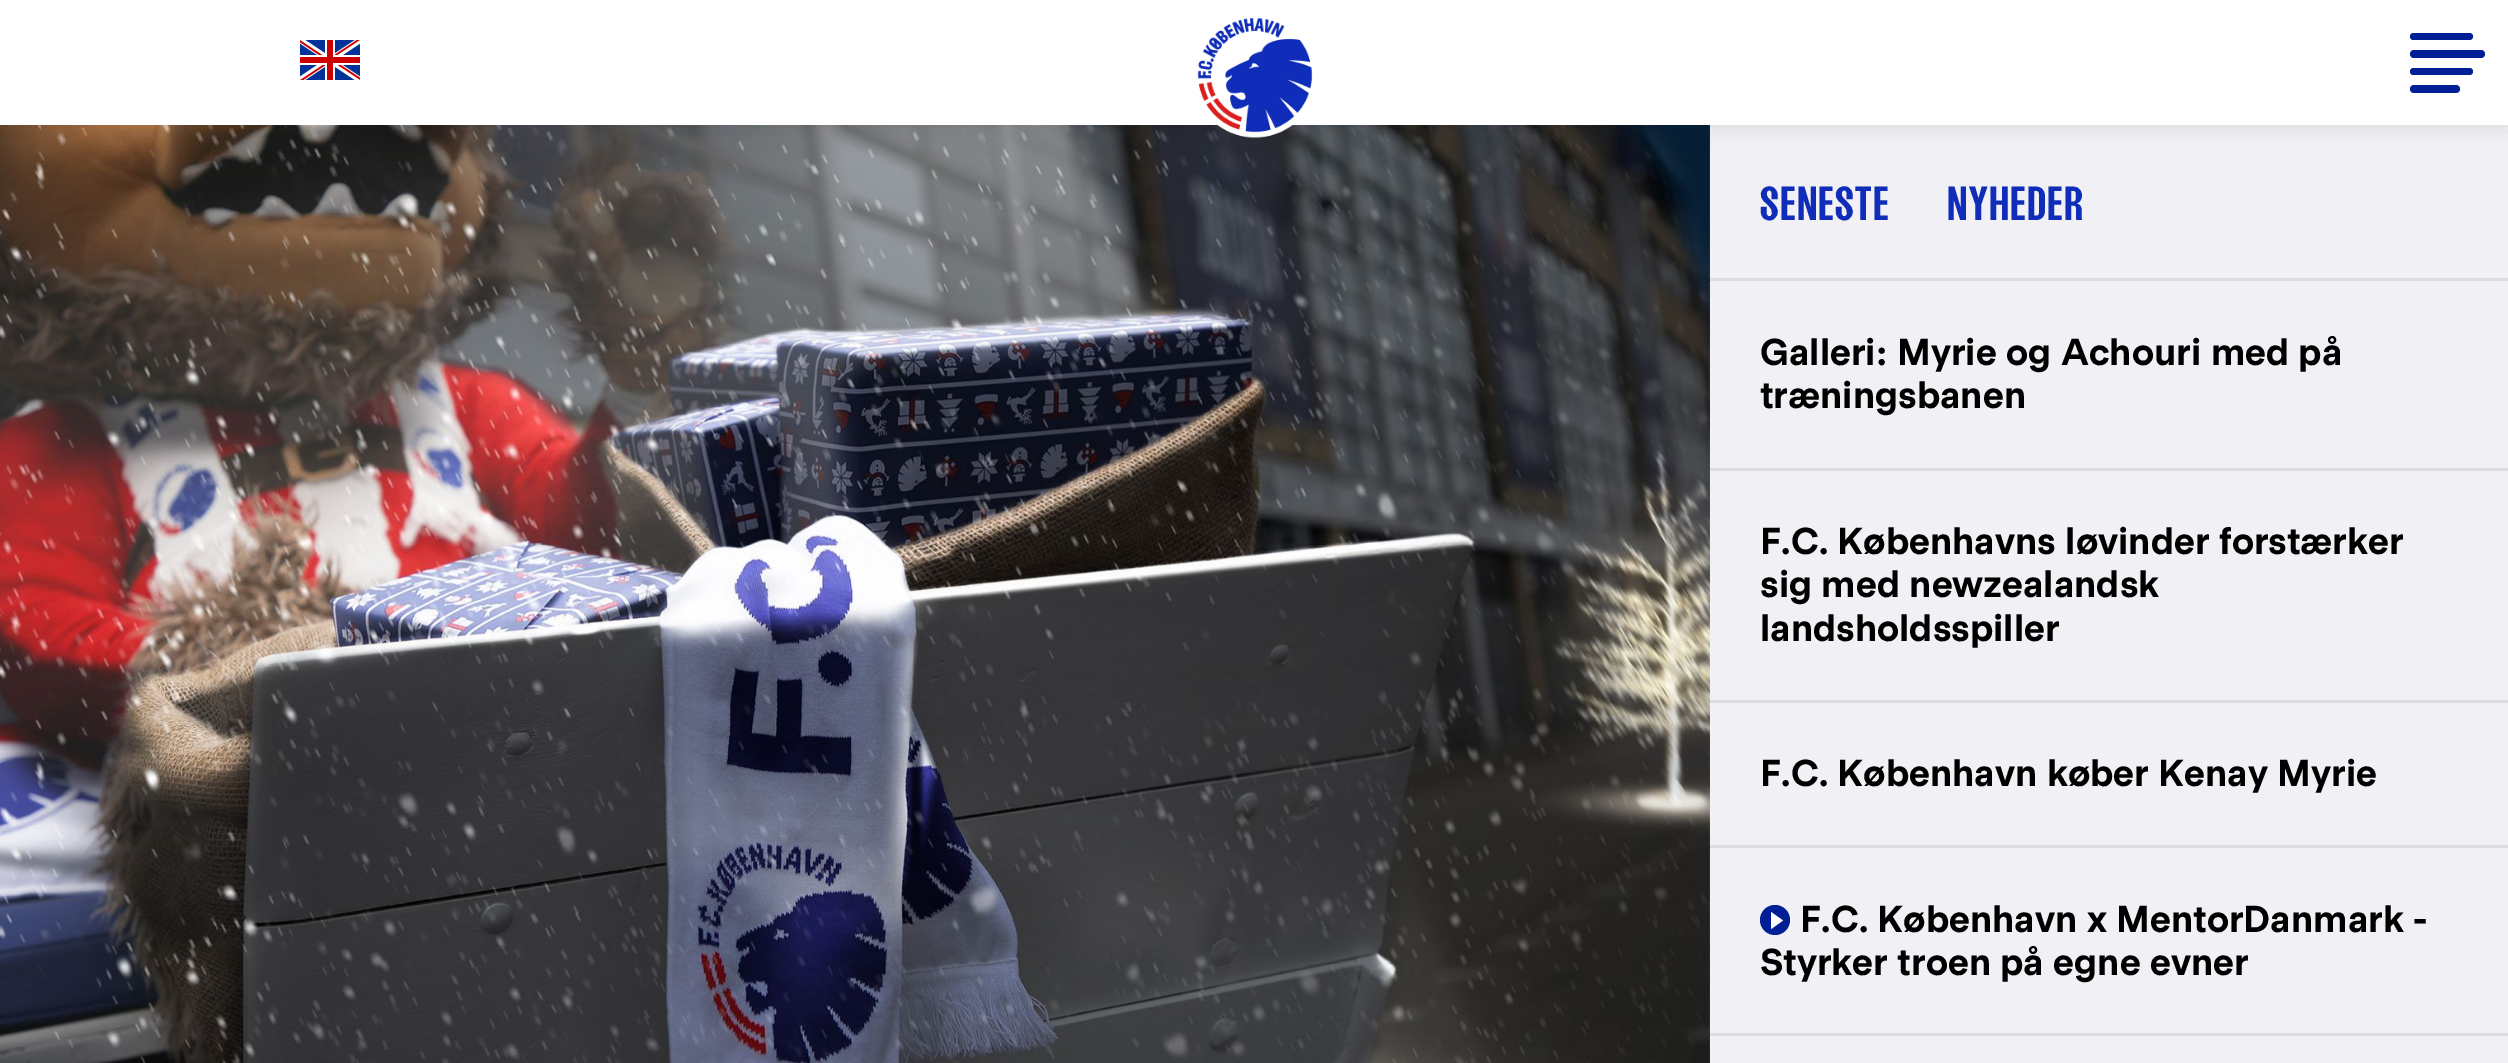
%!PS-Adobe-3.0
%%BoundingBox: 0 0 2508 1063
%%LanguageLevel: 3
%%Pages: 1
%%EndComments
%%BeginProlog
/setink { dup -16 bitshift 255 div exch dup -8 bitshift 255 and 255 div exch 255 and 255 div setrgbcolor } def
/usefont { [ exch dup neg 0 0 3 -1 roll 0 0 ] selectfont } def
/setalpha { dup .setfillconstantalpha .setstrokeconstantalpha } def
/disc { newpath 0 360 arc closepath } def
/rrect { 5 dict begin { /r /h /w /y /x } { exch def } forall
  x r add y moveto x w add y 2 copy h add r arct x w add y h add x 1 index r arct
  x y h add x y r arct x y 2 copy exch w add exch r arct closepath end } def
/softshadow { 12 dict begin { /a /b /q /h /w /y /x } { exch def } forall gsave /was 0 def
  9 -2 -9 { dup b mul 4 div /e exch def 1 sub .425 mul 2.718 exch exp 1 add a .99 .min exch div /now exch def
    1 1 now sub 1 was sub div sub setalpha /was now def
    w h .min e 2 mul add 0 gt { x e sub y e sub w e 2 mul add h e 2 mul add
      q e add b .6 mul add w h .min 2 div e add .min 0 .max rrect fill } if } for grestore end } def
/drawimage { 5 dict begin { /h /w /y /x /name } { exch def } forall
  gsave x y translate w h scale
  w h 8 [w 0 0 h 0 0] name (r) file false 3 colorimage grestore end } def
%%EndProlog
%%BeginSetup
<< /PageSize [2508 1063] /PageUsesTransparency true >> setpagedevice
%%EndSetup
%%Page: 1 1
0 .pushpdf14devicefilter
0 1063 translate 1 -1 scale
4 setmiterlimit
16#F1F1F5 setink
0 0 2508 1063 rectfill
(img3.raw) 1709 125 1 938 drawimage
(img4.raw) 0 125 1710 938 drawimage
16#000000 setink
0 0 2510 125 0 12.5 0.1 softshadow
16#FFFFFF setink
0 0 2508 125 rectfill
(img1.raw) 300 40 60 40 drawimage
(img2.raw) 1197 17 116 121 drawimage
16#001E96 setink
2410 50 75 8 4 rrect fill
2410 33 63 7 3.5 rrect fill
2410 68 63 7 3.5 rrect fill
2410 85 50 8 4 rrect fill
/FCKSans-Bold 44 usefont
16#0F2DB9 setink
1760 220 moveto 51 0 32 1.25 0 (SENESTE NYHEDER) awidthshow
16#DDDDE1 setink
1710 278 798 3 rectfill
/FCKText-Bold 36 usefont
16#000000 setink
1760 365 moveto (Galleri: Myrie og Achouri med på) show
1760 408 moveto (træningsbanen) show
16#DDDDE1 setink
1710 468 798 3 rectfill
16#000000 setink
[
    [(F.C. Københavns løvinder forstærker) 1760 554]
    [(sig med newzealandsk) 1760 597]
    [(landsholdsspiller) 1760 641]
] { aload pop moveto show } forall
16#DDDDE1 setink
1710 700 798 3 rectfill
16#000000 setink
1760 786 moveto (F.C. København køber Kenay Myrie) show
16#DDDDE1 setink
1710 845 798 3 rectfill
16#001E96 setink
1775 920 15 disc fill
16#FFFFFF setink
1783 920.5 moveto 1771 929 lineto 1771 912 lineto closepath eofill
16#000000 setink
1800 932 moveto (F.C. København x MentorDanmark -) show
1760 975 moveto (Styrker troen på egne evner) show
16#DDDDE1 setink
1710 1033 798 3 rectfill
.poppdf14devicefilter showpage
%%EOF
